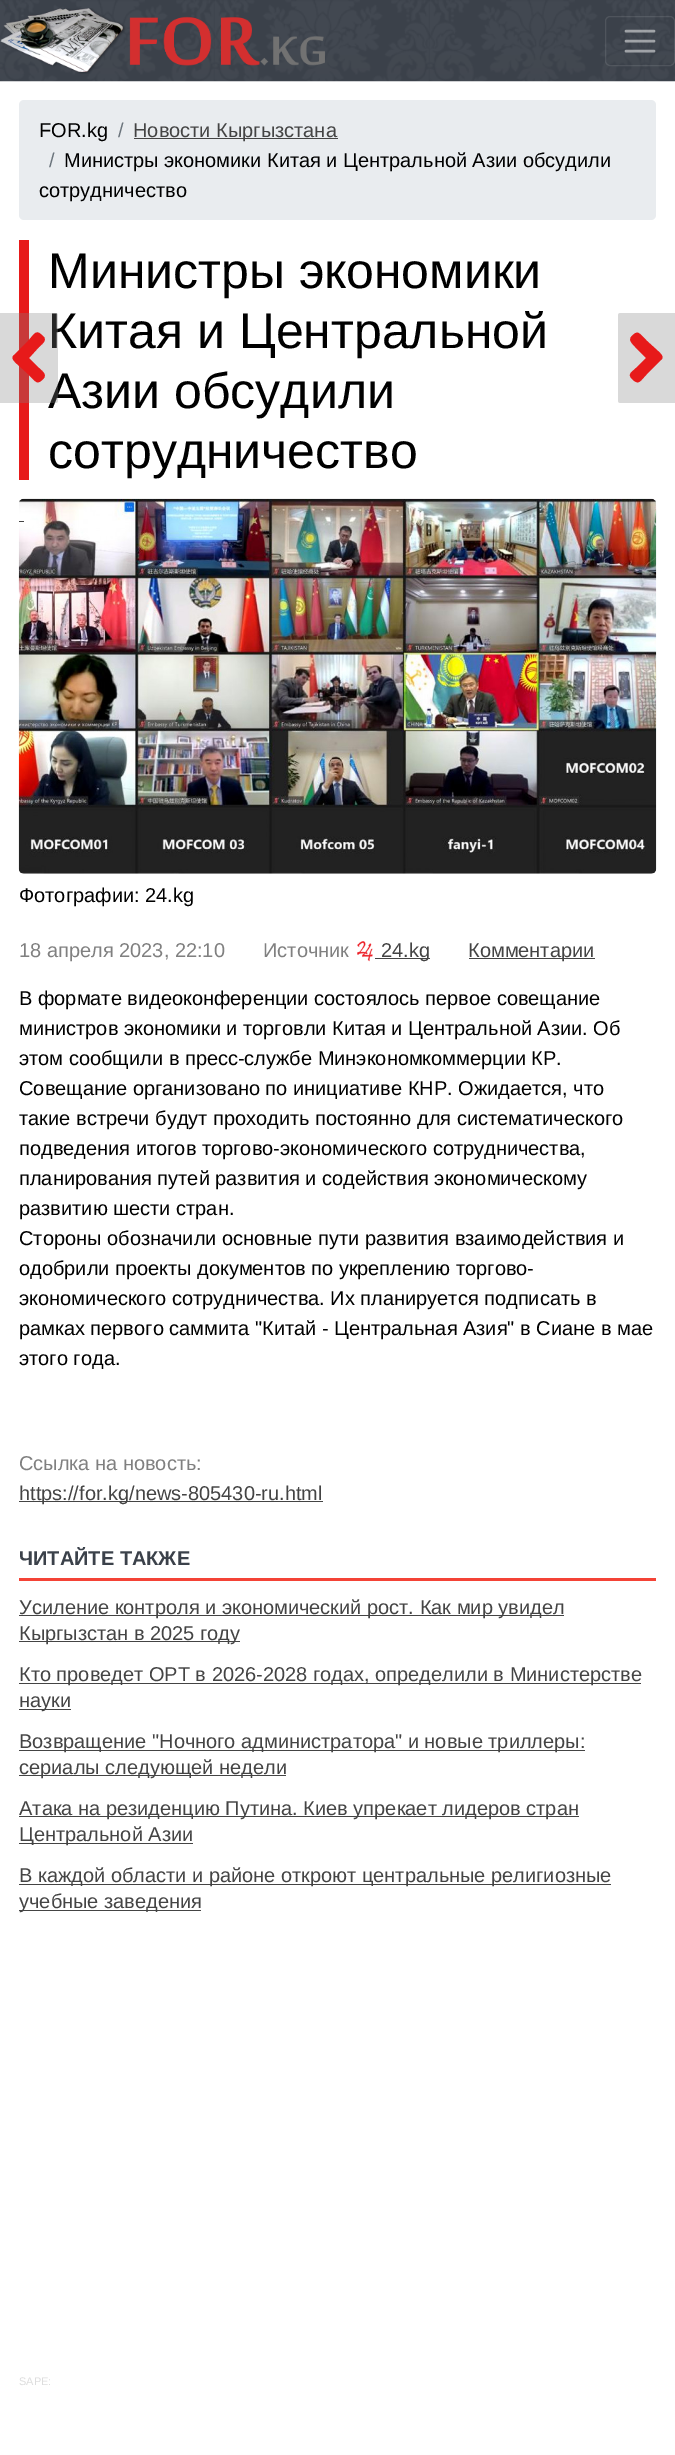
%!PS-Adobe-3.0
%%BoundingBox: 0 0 675 2455
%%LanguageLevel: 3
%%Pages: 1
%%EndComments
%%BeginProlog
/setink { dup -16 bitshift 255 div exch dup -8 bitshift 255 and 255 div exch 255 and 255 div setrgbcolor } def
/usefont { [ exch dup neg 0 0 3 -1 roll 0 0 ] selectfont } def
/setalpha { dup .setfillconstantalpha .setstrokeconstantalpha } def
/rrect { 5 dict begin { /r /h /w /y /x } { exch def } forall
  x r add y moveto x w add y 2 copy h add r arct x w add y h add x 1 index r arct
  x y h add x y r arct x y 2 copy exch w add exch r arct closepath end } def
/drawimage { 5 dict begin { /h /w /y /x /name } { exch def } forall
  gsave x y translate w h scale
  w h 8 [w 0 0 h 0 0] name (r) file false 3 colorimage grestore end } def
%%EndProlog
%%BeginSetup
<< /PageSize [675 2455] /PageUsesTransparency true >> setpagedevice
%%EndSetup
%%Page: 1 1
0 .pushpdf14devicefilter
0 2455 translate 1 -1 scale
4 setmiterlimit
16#FFFFFF setink
0 0 675 2455 rectfill
(img1.raw) 0 0 675 82 drawimage
(img2.raw) 0 8 325 66 drawimage
0.1 setalpha
605.5 16.5 69 49 4.5 rrect stroke
0.5 setalpha
2.5 setlinewidth
1 setlinecap
626 31 moveto 654 31 lineto 626 41 moveto 654 41 lineto 626 51 moveto 654 51 lineto stroke
1 setalpha
16#E9ECEF setink
19 100 637 120 5 rrect fill
/LiberationSans-Regular 20 usefont
16#000000 setink
39 137 moveto (FOR.kg) show
16#6C757D setink
118 137 moveto (/) show
16#444444 setink
134 138 204 1 rectfill
133 137 moveto (Новости Кыргызстана) show
16#6C757D setink
49 167 moveto (/) show
16#000000 setink
64 167 moveto (Министры экономики Китая и Центральной Азии обсудили) show
39 197 moveto (сотрудничество) show
16#E71A1A setink
19 240 10 240 rectfill
/LiberationSans-Regular 50 usefont
16#000000 setink
48 348 moveto (Китая и Центральной) show
48 408 moveto (Азии обсудили) show
0.3 setalpha
16#808080 setink
0 313 moveto 55.5 313 lineto 57 313 58 314 58 315.5 curveto 58 400.5 lineto 58 402 57 403 55.5 403 curveto 0 403 lineto closepath fill
1 setalpha
16#E71A1A setink
14 355 moveto 28 341 lineto 36 332 36 329 44 337 curveto 47 341 41 345 39 347 curveto 29 358 lineto 39 368 lineto 41 370 47 374 44 378 curveto 37 386 36 382 28 374 curveto 17 364 lineto 15 362 10 358 14 355 curveto closepath fill
16#000000 setink
48 288 moveto (Министры экономики) show
48 468 moveto (сотрудничество) show
16#D9D9D9 setink
620.5 313 moveto 675 313 lineto 675 403 lineto 620.5 403 lineto 619 403 618 402 618 400.5 curveto 618 315.5 lineto 618 314 619 313 620.5 313 curveto closepath fill
16#E71A1A setink
661 360 moveto 647 374 lineto 640 381 639 386 632 379 curveto 627 374 632 372 636 368 curveto 646 358 lineto 636 348 lineto 634 345 628 341 631 337 curveto 638 329 639 333 647 341 curveto 658 351 lineto 660 353 665 357 661 360 curveto closepath fill
(img3.raw) 18 498 639 376 drawimage
16#444444 setink
19 521 5 1 rectfill
/LiberationSans-Regular 20 usefont
16#000000 setink
19 902 moveto (Фотографии: 24.kg) show
16#808080 setink
19 957 moveto (18 апреля 2023, 22:10) show
263 957 moveto (Источник) show
(img4.raw) 357 941 16 21 drawimage
16#444444 setink
375 958 55 1 rectfill
381 957 moveto (24.kg) show
469 958 126 1 rectfill
468 957 moveto (Комментарии) show
16#000000 setink
[
    [(В формате видеоконференции состоялось первое совещание) 19 1005]
    [(министров экономики и торговли Китая и Центральной Азии. Об) 19 1035]
    [(этом сообщили в пресс-службе Минэкономкоммерции КР.) 19 1065]
    [(Совещание организовано по инициативе КНР. Ожидается, что) 19 1095]
    [(такие встречи будут проходить постоянно для систематического) 19 1125]
    [(подведения итогов торгово-экономического сотрудничества,) 19 1155]
    [(планирования путей развития и содействия экономическому) 19 1185]
    [(развитию шести стран.) 19 1215]
    [(Стороны обозначили основные пути развития взаимодействия и) 19 1245]
    [(одобрили проекты документов по укреплению торгово-) 19 1275]
    [(экономического сотрудничества. Их планируется подписать в) 19 1305]
    [(рамках первого саммита "Китай - Центральная Азия" в Сиане в мае) 19 1335]
    [(этого года.) 19 1365]
] { aload pop moveto show } forall
16#808080 setink
19 1470 moveto (Ссылка на новость:) show
16#444444 setink
19 1501 304 1 rectfill
19 1500 moveto (https://for.kg/news-805430-ru.html) show
16#F44336 setink
19 1578 637 3 rectfill
/LiberationSans-Bold 20 usefont
16#3B414A setink
19 1565 moveto (ЧИТАЙТЕ ТАКЖЕ) show
16#444444 setink
19 1615 545 1 rectfill
/LiberationSans-Regular 20 usefont
19 1614 moveto (Усиление контроля и экономический рост. Как мир увидел) show
19 1641 221 1 rectfill
19 1640 moveto (Кыргызстан в 2025 году) show
19 1683 622 1 rectfill
19 1681 moveto (Кто проведет ОРТ в 2026-2028 годах, определили в Министерстве) show
19 1709 52 1 rectfill
19 1707 moveto (науки) show
19 1750 566 1 rectfill
19 1748 moveto (Возвращение "Ночного администратора" и новые триллеры:) show
19 1775 267 1 rectfill
19 1774 moveto (сериалы следующей недели) show
19 1816 560 1 rectfill
19 1815 moveto (Атака на резиденцию Путина. Киев упрекает лидеров стран) show
19 1843 174 1 rectfill
19 1841 moveto (Центральной Азии) show
19 1884 592 1 rectfill
19 1882 moveto (В каждой области и районе откроют центральные религиозные) show
19 1910 182 1 rectfill
19 1908 moveto (учебные заведения) show
/LiberationSans-Regular 11 usefont
16#DDDDDD setink
19 2385 moveto (SAPE:) show
.poppdf14devicefilter showpage
%%EOF
